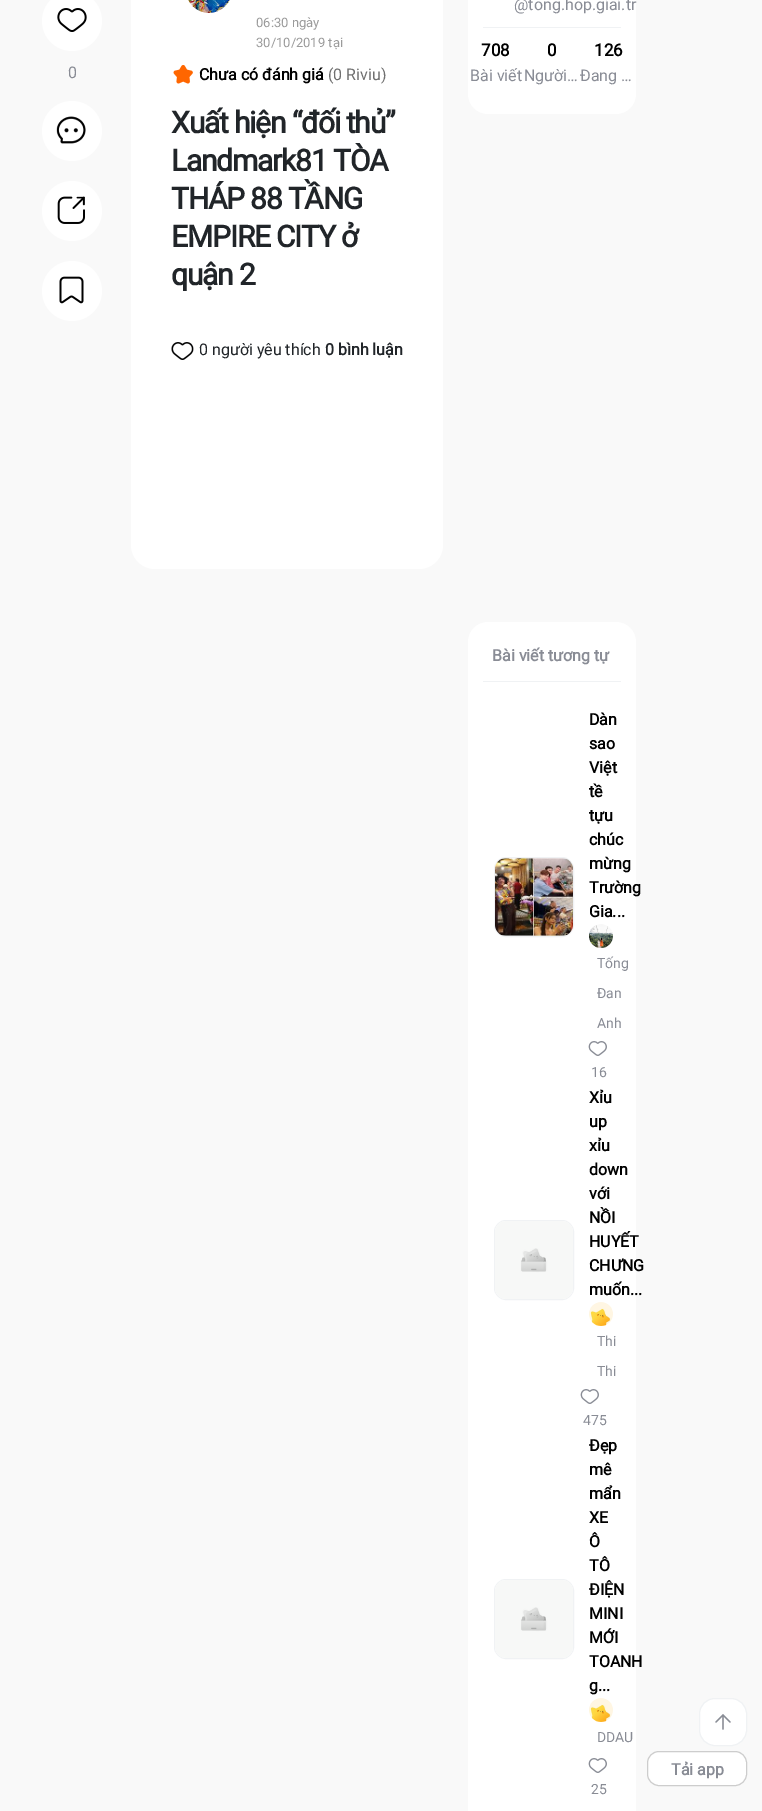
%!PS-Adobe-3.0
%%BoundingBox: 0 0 762 1811
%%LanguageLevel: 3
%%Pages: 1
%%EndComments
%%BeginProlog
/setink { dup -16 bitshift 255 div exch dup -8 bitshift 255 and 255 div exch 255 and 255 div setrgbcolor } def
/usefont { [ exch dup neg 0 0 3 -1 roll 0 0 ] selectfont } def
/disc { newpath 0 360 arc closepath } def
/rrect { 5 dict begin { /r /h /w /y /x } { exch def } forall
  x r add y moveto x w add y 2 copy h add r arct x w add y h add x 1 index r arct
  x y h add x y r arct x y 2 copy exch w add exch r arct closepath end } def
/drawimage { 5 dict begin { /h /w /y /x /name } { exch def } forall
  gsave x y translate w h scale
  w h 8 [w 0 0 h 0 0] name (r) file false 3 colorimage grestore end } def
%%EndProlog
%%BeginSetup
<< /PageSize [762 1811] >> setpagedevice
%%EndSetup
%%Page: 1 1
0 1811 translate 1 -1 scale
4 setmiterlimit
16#F9F9F9 setink
0 0 762 1811 rectfill
16#FFFFFF setink
72 21 30 disc fill
(img1.raw) 57 8 30 24 drawimage
/Roboto-Regular 16 usefont
16#898C95 setink
68 78 moveto (0) show
16#FFFFFF setink
72 131 30 disc fill
(img2.raw) 56 116 30 28 drawimage
72 211 30 disc fill
(img3.raw) 57 196 28 28 drawimage
72 291 30 disc fill
(img4.raw) 59 276 25 28 drawimage
131 -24 312 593 24 rrect fill
(img5.raw) 188 0 42 13 drawimage
/Roboto-Regular 13 usefont
16#9B9B9B setink
256 27 moveto (06:30 ngày) show
256 47 moveto (30/10/2019 tại) show
(img6.raw) 173 65 20 19 drawimage
/Roboto-Bold 16 usefont
16#000000 setink
199 80 moveto (Chưa có đánh giá) show
/Roboto-Regular 16 usefont
16#707070 setink
328 80 moveto (\(0 Riviu\)) show
/Roboto-Bold 30 usefont
16#212529 setink
171 133 moveto -1.2 0 (Xuất hiện “đối thủ”) ashow
171 171 moveto -1.2 0 (Landmark81 TÒA) ashow
171 209 moveto -1.2 0 (THÁP 88 TẦNG) ashow
171 247 moveto -1.2 0 (EMPIRE CITY ở) ashow
171 285 moveto -1.2 0 (quận 2) ashow
(img7.raw) 171 342 23 18 drawimage
/Roboto-Regular 16 usefont
199 355 moveto (0 người yêu thích) show
/Roboto-Bold 16 usefont
325 355 moveto (0 bình luận) show
16#FFFFFF setink
468 -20 168 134 20 rrect fill
/Roboto-Regular 16 usefont
16#898C95 setink
514 10 moveto (@tong.hop.giai.tr) show
16#F0F2F4 setink
483 27 138 1 rectfill
/Roboto-Bold 17 usefont
16#000000 setink
481 56 moveto (708) show
/Roboto-Regular 16 usefont
16#898C95 setink
470 81 moveto (Bài viết) show
/Roboto-Bold 17 usefont
16#000000 setink
547 56 moveto (0) show
/Roboto-Regular 16 usefont
16#898C95 setink
524 81 moveto (Người…) show
/Roboto-Bold 17 usefont
16#000000 setink
594 56 moveto (126) show
/Roboto-Regular 16 usefont
16#898C95 setink
580 81 moveto (Đang …) show
16#FFFFFF setink
468 622 168 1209 20 rrect fill
/Roboto-Bold 16 usefont
16#898C95 setink
492 661 moveto (Bài viết tương tự) show
16#F0F2F4 setink
483 681 138 1 rectfill
494.5 857.5 79 79 11.5 rrect stroke
(img8.raw) 495 858 78 78 drawimage
16#000000 setink
[
    [(Dàn) 589 725]
    [(sao) 589 749]
    [(Việt) 589 773]
    [(tề) 589 797]
    [(tựu) 589 821]
    [(chúc) 589 845]
    [(mừng) 589 869]
    [(Trường) 589 893]
    [(Gia...) 589 917]
] { aload pop moveto show } forall
(img9.raw) 589 924 24 24 drawimage
/Roboto-Regular 14 usefont
16#898C95 setink
[
    [(Tống) 597 968]
    [(Đan) 597 998]
    [(Anh) 597 1028]
] { aload pop moveto show } forall
(img10.raw) 588 1041 19 15 drawimage
591 1077 moveto (16) show
16#F0F2F4 setink
494.5 1220.5 79 79 11.5 rrect stroke
(img11.raw) 495 1221 78 78 drawimage
/Roboto-Bold 16 usefont
16#000000 setink
[
    [(Xỉu) 589 1103]
    [(up) 589 1127]
    [(xỉu) 589 1151]
    [(down) 589 1175]
    [(với) 589 1199]
    [(NỒI) 589 1223]
    [(HUYẾT) 589 1247]
    [(CHƯNG) 589 1271]
    [(muốn...) 589 1295]
] { aload pop moveto show } forall
(img12.raw) 589 1302 24 24 drawimage
/Roboto-Regular 14 usefont
16#898C95 setink
597 1346 moveto (Thi) show
597 1376 moveto (Thi) show
(img10.raw) 580 1389 19 15 drawimage
583 1425 moveto (475) show
16#F0F2F4 setink
494.5 1579.5 79 79 11.5 rrect stroke
(img11.raw) 495 1580 78 78 drawimage
/Roboto-Bold 16 usefont
16#000000 setink
[
    [(Đẹp) 589 1451]
    [(mê) 589 1475]
    [(mẩn) 589 1499]
    [(XE) 589 1523]
    [(Ô) 589 1547]
    [(TÔ) 589 1571]
    [(ĐIỆN) 589 1595]
    [(MINI) 589 1619]
    [(MỚI) 589 1643]
    [(TOANH) 589 1667]
    [(g...) 589 1691]
] { aload pop moveto show } forall
(img12.raw) 589 1698 24 24 drawimage
/Roboto-Regular 14 usefont
16#898C95 setink
597 1742 moveto (DDAU) show
(img10.raw) 588 1758 19 15 drawimage
591 1794 moveto (25) show
16#FFFFFF setink
699.5 1698.5 47 47 15.5 rrect gsave fill grestore
16#F0F2F4 setink
stroke
(img13.raw) 715 1714 16 16 drawimage
16#FFFFFF setink
647.5 1751.5 99 34 11.5 rrect gsave fill grestore
16#CDCDCD setink
stroke
/Roboto-Bold 16 usefont
16#898C95 setink
671 1775 moveto (Tải app) show
showpage
%%EOF
